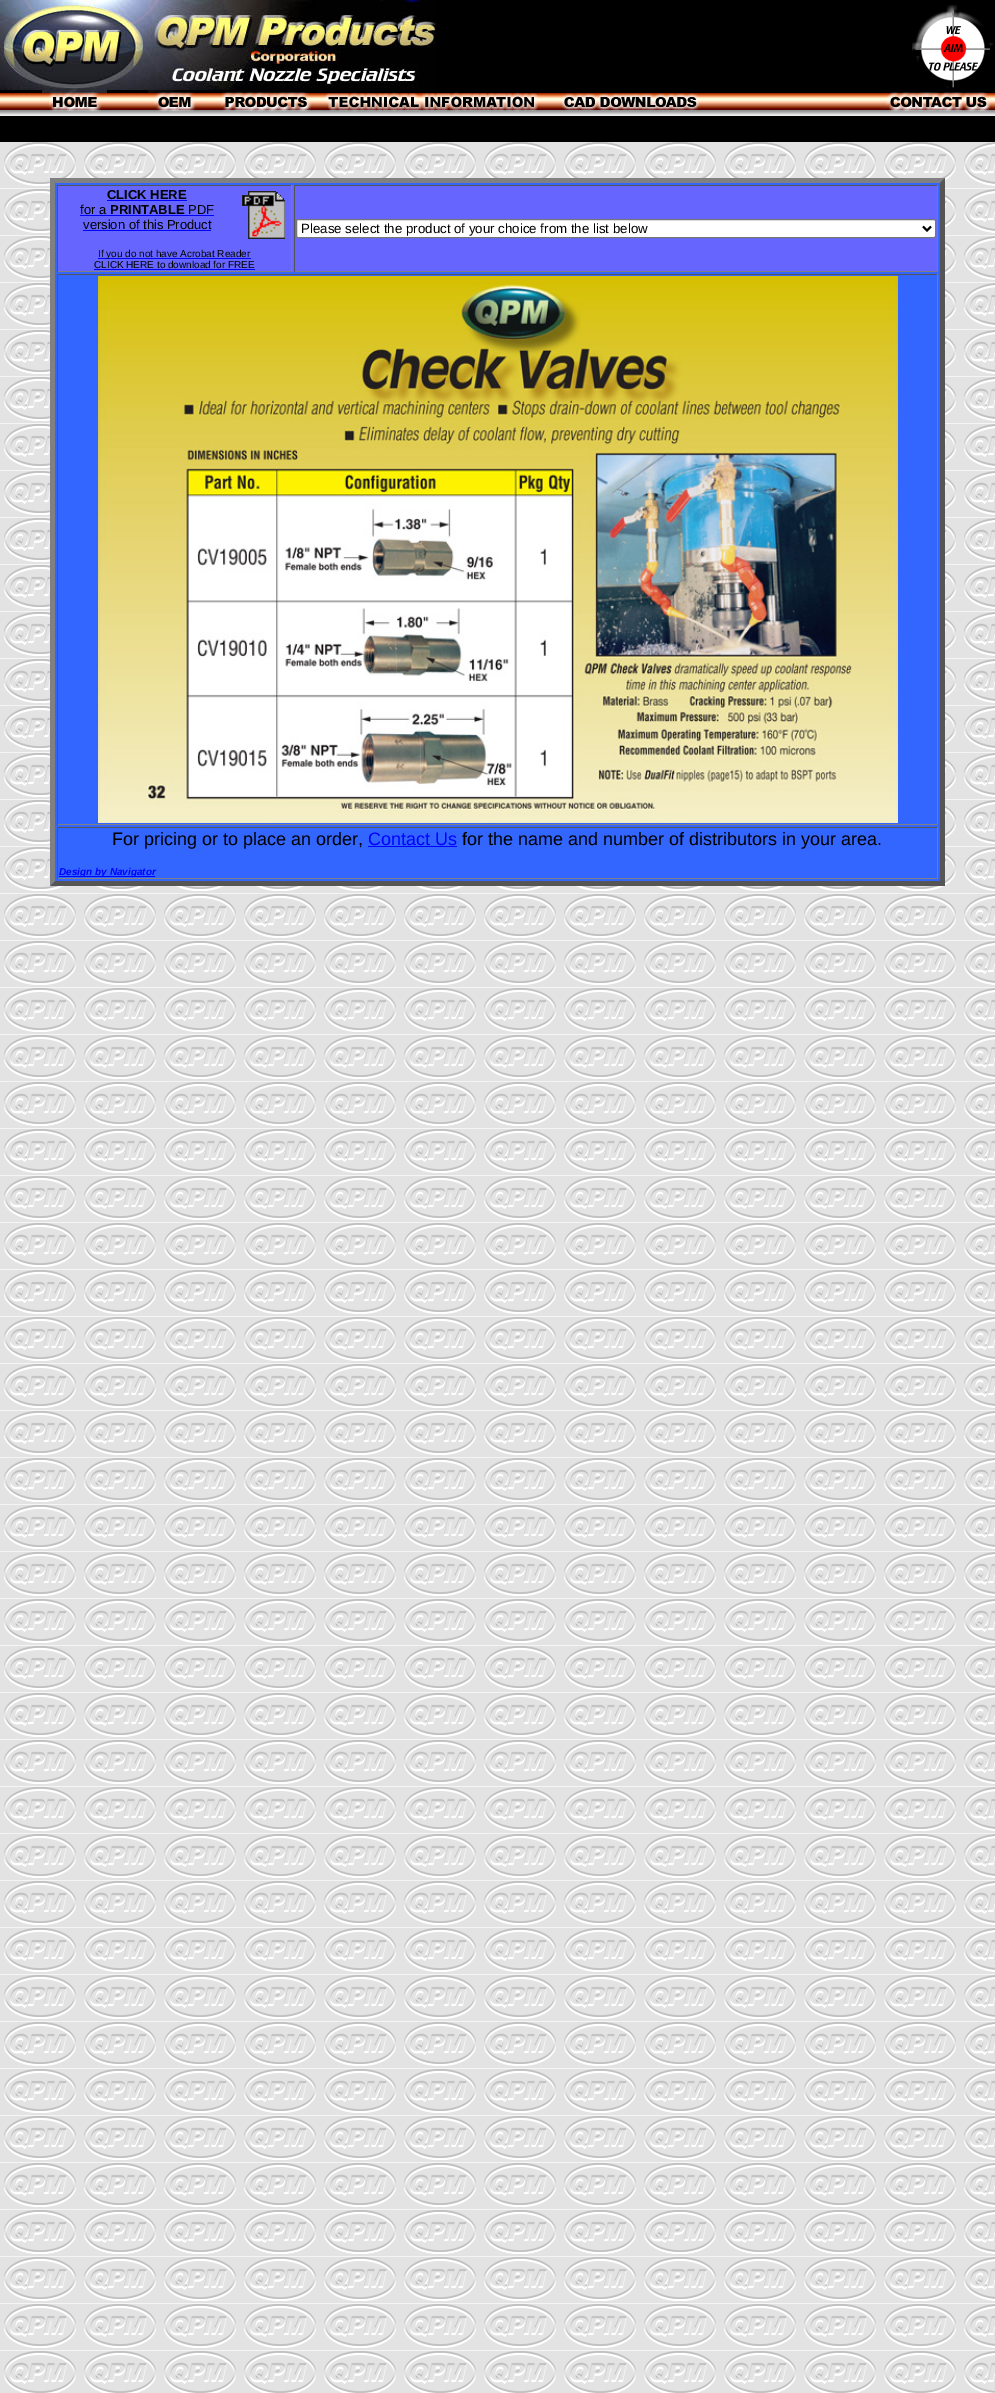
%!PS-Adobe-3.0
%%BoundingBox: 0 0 995 2393
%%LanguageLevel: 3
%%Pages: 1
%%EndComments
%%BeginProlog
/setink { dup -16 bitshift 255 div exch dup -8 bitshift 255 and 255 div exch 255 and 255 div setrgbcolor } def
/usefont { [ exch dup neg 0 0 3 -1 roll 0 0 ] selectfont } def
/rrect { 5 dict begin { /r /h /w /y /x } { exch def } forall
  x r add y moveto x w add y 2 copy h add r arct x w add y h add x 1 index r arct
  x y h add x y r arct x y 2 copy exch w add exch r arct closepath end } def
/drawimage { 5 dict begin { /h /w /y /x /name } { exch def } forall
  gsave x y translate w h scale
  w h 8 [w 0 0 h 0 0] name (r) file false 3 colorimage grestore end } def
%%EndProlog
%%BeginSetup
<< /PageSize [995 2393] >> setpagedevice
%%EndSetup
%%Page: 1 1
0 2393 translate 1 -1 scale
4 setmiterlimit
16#FFFFFF setink
0 0 995 2393 rectfill
(img1.raw) 0 142 995 2251 drawimage
(img2.raw) 0 0 995 142 drawimage
(img3.raw) 0 0 148 90 drawimage
(img4.raw) 42 90 65 22 drawimage
(img5.raw) 148 0 289 90 drawimage
(img6.raw) 148 90 48 22 drawimage
(img7.raw) 220 92 92 20 drawimage
(img8.raw) 322 92 219 20 drawimage
(img9.raw) 561 93 139 18 drawimage
(img10.raw) 912 5 82 84 drawimage
(img11.raw) 884 92 111 20 drawimage
16#3366FF setink
50 178 895 708 rectfill
16#808080 setink
50 178 moveto 945 178 lineto 940 183 lineto 55 183 lineto closepath fill
16#555555 setink
945 178 moveto 945 886 lineto 940 881 lineto 940 183 lineto closepath fill
945 886 moveto 50 886 lineto 55 881 lineto 940 881 lineto closepath fill
16#808080 setink
50 886 moveto 50 178 lineto 55 183 lineto 55 881 lineto closepath fill
[
    [58 185 879 87 16#6666FF]
    [57 185 235 1 16#555555]
    [291 185 1 87 16#808080]
    [57 271 235 1 16#808080]
    [57 185 1 87 16#555555]
] { aload pop setink rectfill } forall
/LiberationSans-Regular 13 usefont
16#000000 setink
80 214 moveto (for a) show
16#0000FF setink
80 215 134 1 rectfill
/LiberationSans-Bold 13 usefont
16#000000 setink
107 199 moveto (CLICK HERE) show
16#0000FF setink
107 200 80 1 rectfill
(img12.raw) 242 191 43 48 drawimage
16#000000 setink
110 214 moveto (PRINTABLE) show
/LiberationSans-Regular 13 usefont
188 214 moveto (PDF) show
83 229 moveto (version of this Product) show
16#0000FF setink
83 230 128 1 rectfill
98 258 153 1 rectfill
/LiberationSans-Regular 10 usefont
16#000000 setink
98 257 moveto (If you do not have Acrobat Reader) show
94 268 moveto (CLICK HERE to download for FREE) show
[
    [94 269 161 1 16#0000FF]
    [294 185 644 1 16#555555]
    [937 185 1 87 16#808080]
    [294 271 644 1 16#808080]
    [294 185 1 87 16#555555]
] { aload pop setink rectfill } forall
16#FFFFFF setink
296.5 219.5 639 18 1.5 rrect gsave fill grestore
16#767676 setink
stroke
16#000000 setink
2 setlinewidth
923 226.5 moveto 927 230.5 lineto 931 226.5 lineto stroke
/LiberationSans-Regular 13.3 usefont
301 233 moveto (Please select the product of your choice from the list below) show
[
    [57 274 881 1 16#555555]
    [937 274 1 551 16#808080]
    [57 824 881 1 16#808080]
    [57 274 1 551 16#555555]
] { aload pop setink rectfill } forall
(img13.raw) 98 276 800 547 drawimage
[
    [57 827 881 1 16#555555]
    [937 827 1 52 16#808080]
    [57 878 881 1 16#808080]
    [57 827 1 52 16#555555]
] { aload pop setink rectfill } forall
/LiberationSans-Regular 18 usefont
16#000000 setink
112 845 moveto (For pricing or to place an order,) show
16#0000FF setink
368 845 moveto (Contact Us) show
368 846 89 1 rectfill
16#000000 setink
462 845 moveto (for the name and number of distributors in your area.) show
16#0000FF setink
59 876 96 1 rectfill
/LiberationSans-BoldItalic 10 usefont
59 875 moveto (Design by Navigator) show
showpage
%%EOF
